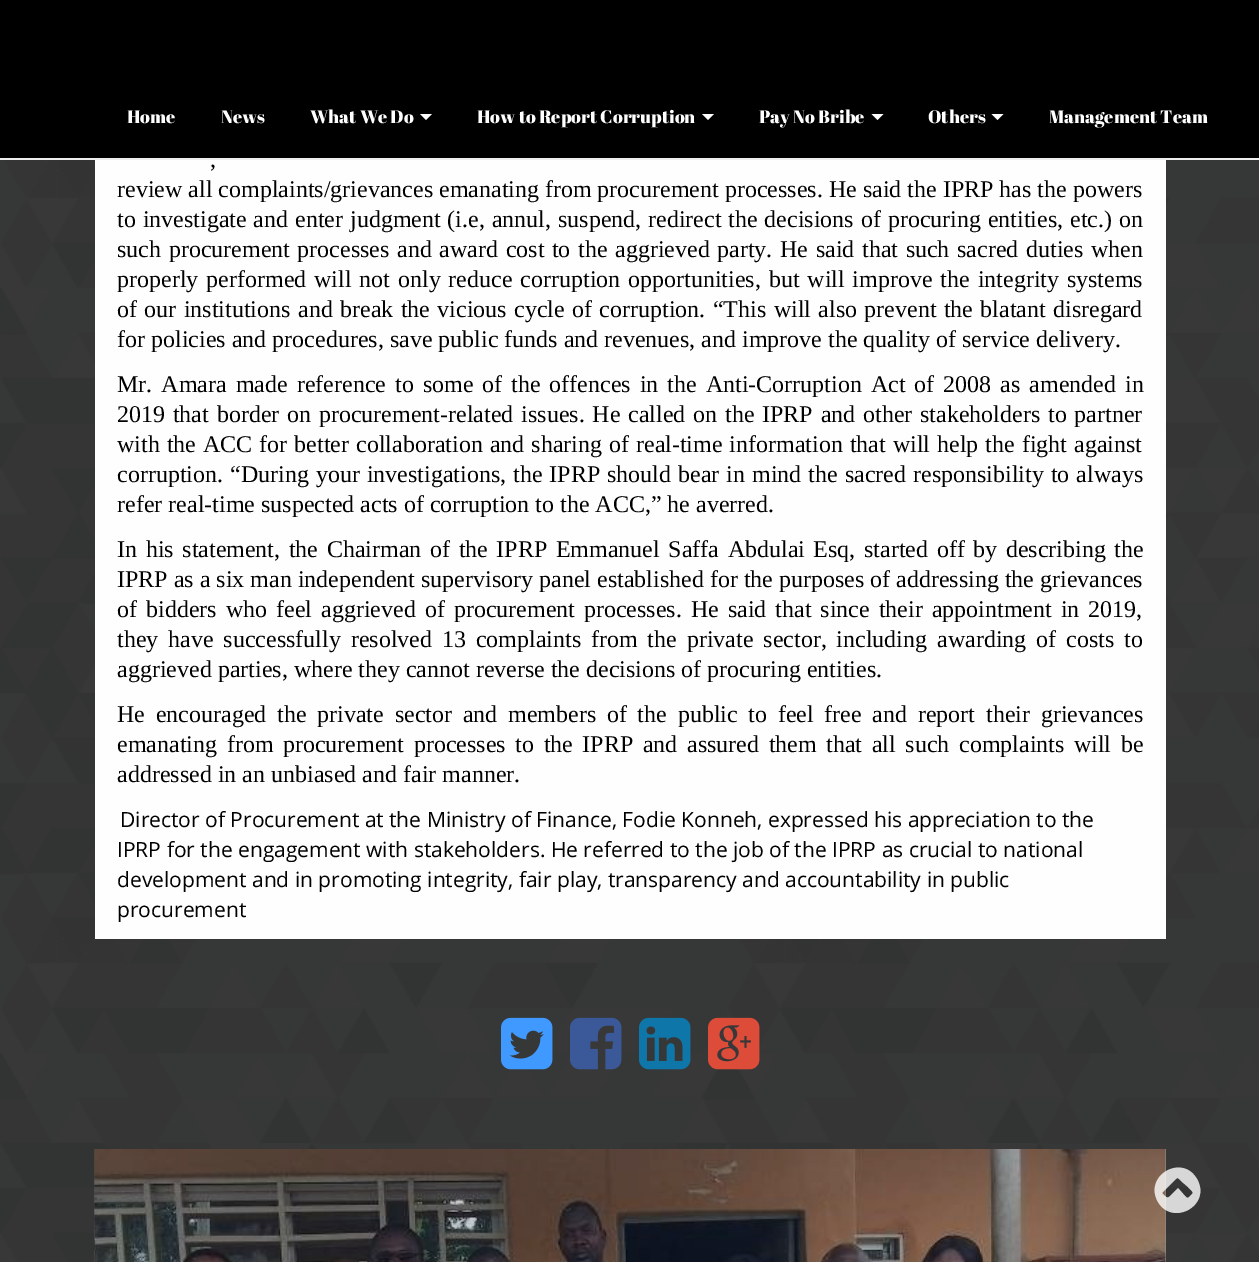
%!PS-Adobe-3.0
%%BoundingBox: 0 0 1259 1262
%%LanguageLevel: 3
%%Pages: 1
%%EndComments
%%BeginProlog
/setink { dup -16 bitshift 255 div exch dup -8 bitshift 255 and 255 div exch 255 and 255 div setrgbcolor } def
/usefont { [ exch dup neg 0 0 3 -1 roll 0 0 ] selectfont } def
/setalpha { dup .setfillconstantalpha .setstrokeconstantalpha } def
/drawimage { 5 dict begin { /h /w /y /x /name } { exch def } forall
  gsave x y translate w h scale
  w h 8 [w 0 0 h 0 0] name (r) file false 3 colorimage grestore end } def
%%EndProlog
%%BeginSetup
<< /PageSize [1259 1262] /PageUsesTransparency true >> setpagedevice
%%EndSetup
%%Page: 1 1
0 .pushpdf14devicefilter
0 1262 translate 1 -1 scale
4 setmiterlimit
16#000000 setink
0 0 1259 1262 rectfill
(img1.raw) 0 160 1259 1102 drawimage
16#EEEEEE setink
0 158 1259 2 rectfill
/AbrilFatface-Regular 18 usefont
16#FFFFFF setink
[
    [(Home) 127 123]
    [(News) 221 123]
    [(What We Do) 310 123]
] { aload pop moveto show } forall
420 114 moveto 432 114 lineto 426 120 lineto closepath fill
477 123 moveto (How to Report Corruption) show
702 114 moveto 714 114 lineto 708 120 lineto closepath fill
759 123 moveto (Pay No Bribe) show
871.5 114 moveto 883.5 114 lineto 877.5 120 lineto closepath fill
928 123 moveto (Others) show
991.5 114 moveto 1003.5 114 lineto 997.5 120 lineto closepath fill
1049 123 moveto (Management Team) show
16#FEFEFE setink
95 160 1071 779 rectfill
/LiberationSerif-Regular 24 usefont
16#000000 setink
210 167 moveto 5 0 32 (,) widthshow
117 197 moveto (review all complaints/grievances emanating from procurement processes. He said the IPRP has the powers) show
117 227 moveto 0.9 0 32 (to investigate and enter judgment \(i.e, annul, suspend, redirect the decisions of procuring entities, etc.\) on) widthshow
117 257 moveto 1.6 0 32 (such procurement processes and award cost to the aggrieved party. He said that such sacred duties when) widthshow
117 287 moveto 1.9 0 32 (properly performed will not only reduce corruption opportunities, but will improve the integrity systems) widthshow
117 317 moveto 1.4 0 32 (of our institutions and break the vicious cycle of corruption. “This will also prevent the blatant disregard) widthshow
117 347 moveto (for policies and procedures, save public funds and revenues, and improve the quality of service delivery.) show
117 392 moveto 3 0 32 (Mr. Amara made reference to some of the offences in the Anti-Corruption Act of 2008 as amended in) widthshow
117 422 moveto 1.8 0 32 (2019 that border on procurement-related issues. He called on the IPRP and other stakeholders to partner) widthshow
117 452 moveto 1 0 32 (with the ACC for better collaboration and sharing of real-time information that will help the fight against) widthshow
117 482 moveto 1 0 32 (corruption. “During your investigations, the IPRP should bear in mind the sacred responsibility to always) widthshow
117 512 moveto (refer real-time suspected acts of corruption to the ACC,” he averred.) show
117 557 moveto 2.6 0 32 (In his statement, the Chairman of the IPRP Emmanuel Saffa Abdulai Esq, started off by describing the) widthshow
117 587 moveto (IPRP as a six man independent supervisory panel established for the purposes of addressing the grievances) show
117 617 moveto 3 0 32 (of bidders who feel aggrieved of procurement processes. He said that since their appointment in 2019,) widthshow
117 647 moveto 3.9 0 32 (they have successfully resolved 13 complaints from the private sector, including awarding of costs to) widthshow
117 677 moveto (aggrieved parties, where they cannot reverse the decisions of procuring entities.) show
117 722 moveto 4.75 0 32 (He encouraged the private sector and members of the public to feel free and report their grievances) widthshow
117 752 moveto 3.6 0 32 (emanating from procurement processes to the IPRP and assured them that all such complaints will be) widthshow
117 782 moveto (addressed in an unbiased and fair manner.) show
/OpenSans-Regular 21 usefont
[
    [(Director of Procurement at the Ministry of Finance, Fodie Konneh, expressed his appreciation to the) 120 827]
    [(IPRP for the engagement with stakeholders. He referred to the job of the IPRP as crucial to national) 117 857]
    [(development and in promoting integrity, fair play, transparency and accountability in public) 117 887]
    [(procurement) 117 917]
] { aload pop moveto show } forall
(img2.raw) 501 1017 52 53 drawimage
(img3.raw) 570 1017 52 53 drawimage
(img4.raw) 639 1017 52 53 drawimage
(img5.raw) 708 1017 52 53 drawimage
16#B8B8B8 setink
1165 1149 1 113 rectfill
(img6.raw) 94 1149 1072 113 drawimage
0.18 setalpha
16#000000 setink
95 1149 1071 113 rectfill
0.8 setalpha
16#FFFFFF setink
1158 1202 moveto 1143 1176 1182 1153 1197 1179 curveto 1212 1205 1173 1227 1158 1202 curveto closepath 1163 1192 moveto 1161 1193 1164 1195 1165 1196 curveto 1168 1199 1169 1197 1172 1194 curveto 1178 1188 lineto 1185 1196 lineto 1188 1199 1188 1198 1191 1195 curveto 1195 1192 1191 1191 1188 1187 curveto 1181 1181 lineto 1177 1177 1178 1177 1174 1181 curveto closepath fill
.poppdf14devicefilter showpage
%%EOF
